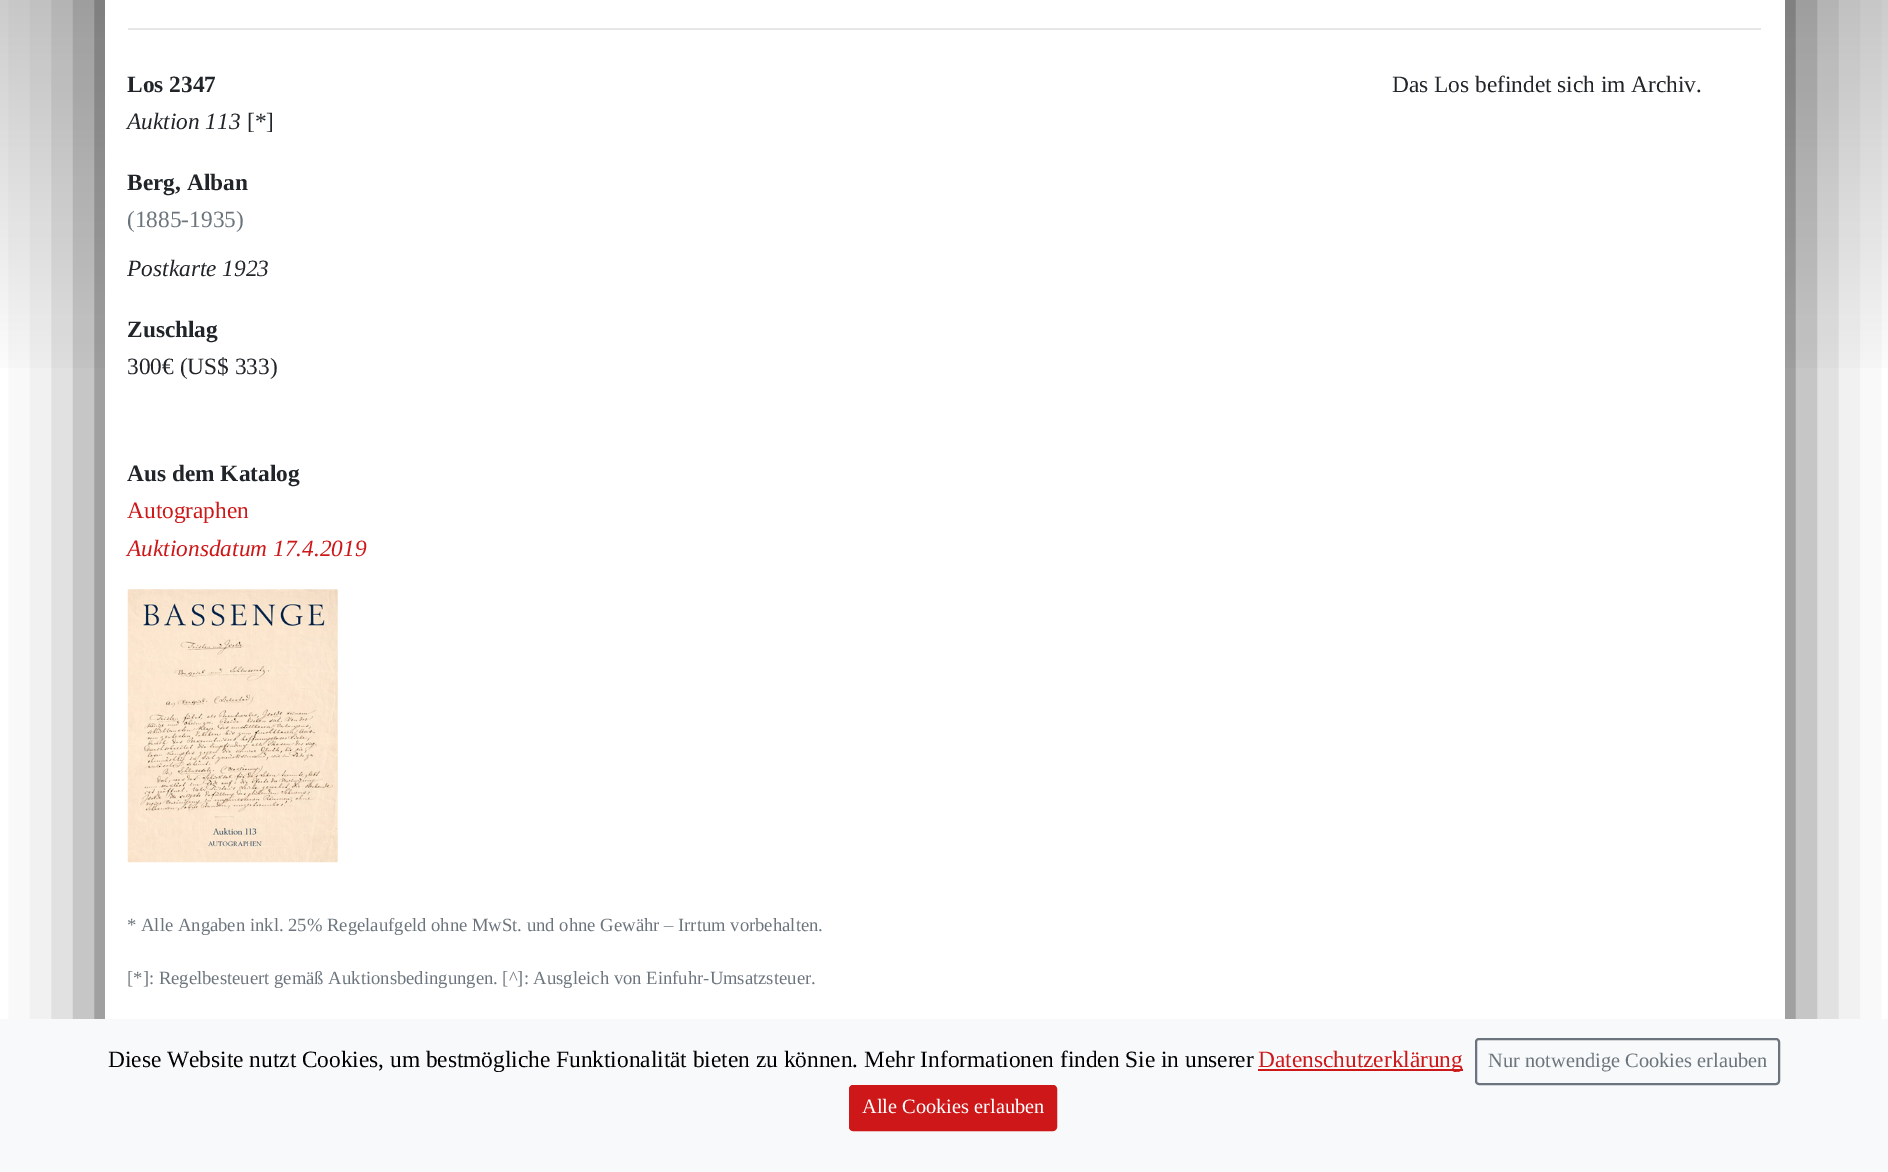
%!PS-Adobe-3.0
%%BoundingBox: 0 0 1888 1172
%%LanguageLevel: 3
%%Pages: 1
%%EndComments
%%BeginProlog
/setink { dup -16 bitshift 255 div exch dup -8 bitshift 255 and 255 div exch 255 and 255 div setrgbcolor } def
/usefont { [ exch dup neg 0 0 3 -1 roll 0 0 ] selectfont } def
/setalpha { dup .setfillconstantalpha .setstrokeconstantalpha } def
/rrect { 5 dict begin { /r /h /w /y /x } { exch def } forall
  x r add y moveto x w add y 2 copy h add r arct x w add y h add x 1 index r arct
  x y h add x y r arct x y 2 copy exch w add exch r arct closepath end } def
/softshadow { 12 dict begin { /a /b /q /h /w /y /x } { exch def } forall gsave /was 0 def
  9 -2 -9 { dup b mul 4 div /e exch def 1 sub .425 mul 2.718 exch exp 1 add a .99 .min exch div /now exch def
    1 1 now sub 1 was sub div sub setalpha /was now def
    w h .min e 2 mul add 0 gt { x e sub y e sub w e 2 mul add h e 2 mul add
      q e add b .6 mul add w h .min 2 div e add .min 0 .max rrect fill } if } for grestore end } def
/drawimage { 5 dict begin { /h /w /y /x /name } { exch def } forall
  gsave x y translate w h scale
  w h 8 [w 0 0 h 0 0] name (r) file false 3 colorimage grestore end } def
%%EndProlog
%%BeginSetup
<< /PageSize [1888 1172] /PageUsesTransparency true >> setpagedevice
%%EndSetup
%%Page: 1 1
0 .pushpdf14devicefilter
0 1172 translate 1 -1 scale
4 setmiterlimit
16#FFFFFF setink
0 0 1888 1172 rectfill
gsave 0 0 moveto 1888 0 lineto 1888 368 lineto 0 368 lineto closepath clip newpath
<< /ShadingType 2 /ColorSpace /DeviceRGB /Coords [944 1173 944 0] /Extend [true true] /Function << /FunctionType 3 /Domain [0 1] /Functions [<< /FunctionType 2 /Domain [0 1] /C0 [1 1 1] /C1 [1 1 1] /N 1 >> << /FunctionType 2 /Domain [0 1] /C0 [1 1 1] /C1 [0.8 0.8 0.8] /N 1 >>] /Bounds [0.67] /Encode [0 1 0 1] >> >> shfill grestore
16#000000 setink
105 -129 1680 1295 0 43 0.75 softshadow
16#FFFFFF setink
105 0 1680 1019 rectfill
16#E6E6E6 setink
128 28 1633 2 rectfill
/LiberationSerif-Bold 23.35 usefont
16#212529 setink
127 92 moveto (Los 2347) show
/LiberationSerif-Italic 23.35 usefont
127 129 moveto (Auktion 113) show
/LiberationSerif-Regular 23.35 usefont
247 129 moveto ([*]) show
/LiberationSerif-Bold 23.35 usefont
127 190 moveto (Berg, Alban) show
/LiberationSerif-Regular 23.35 usefont
16#6C757D setink
127 227 moveto (\(1885-1935\)) show
/LiberationSerif-Italic 23.35 usefont
16#212529 setink
127 276 moveto (Postkarte 1923) show
/LiberationSerif-Bold 23.35 usefont
127 337 moveto (Zuschlag) show
/LiberationSerif-Regular 23.35 usefont
127 374 moveto (300€ \(US$ 333\)) show
/LiberationSerif-Bold 23.35 usefont
127 481 moveto (Aus dem Katalog) show
/LiberationSerif-Regular 23.35 usefont
16#CD1719 setink
127 518 moveto (Autographen) show
/LiberationSerif-Italic 23.35 usefont
127 556 moveto (Auktionsdatum 17.4.2019) show
(img1.raw) 127 589 211 274 drawimage
/LiberationSerif-Regular 23.35 usefont
16#212529 setink
1392 92 moveto (Das Los befindet sich im Archiv.) show
/LiberationSerif-Regular 18.65 usefont
16#6C757D setink
127 931 moveto (* Alle Angaben inkl. 25% Regelaufgeld ohne MwSt. und ohne Gewähr – Irrtum vorbehalten.) show
127 984 moveto ([*]: Regelbesteuert gemäß Auktionsbedingungen. [^]: Ausgleich von Einfuhr-Umsatzsteuer.) show
16#F8F9FA setink
0 1019 1888 153 rectfill
/LiberationSerif-Regular 23.35 usefont
16#000000 setink
108 1067 moveto (Diese Website nutzt Cookies, um bestmögliche Funktionalität bieten zu können. Mehr Informationen finden Sie in unserer) show
16#CD1719 setink
1258 1069 205 2 rectfill
1258 1067 moveto (Datenschutzerklärung) show
16#6C757D setink
2 setlinewidth
1476 1039 303 45 3 rrect stroke
/LiberationSerif-Regular 20.4 usefont
1488 1067 moveto (Nur notwendige Cookies erlauben) show
16#CD1719 setink
850 1086 206 44 3 rrect gsave fill grestore
stroke
16#FFFFFF setink
862 1113 moveto (Alle Cookies erlauben) show
.poppdf14devicefilter showpage
%%EOF
